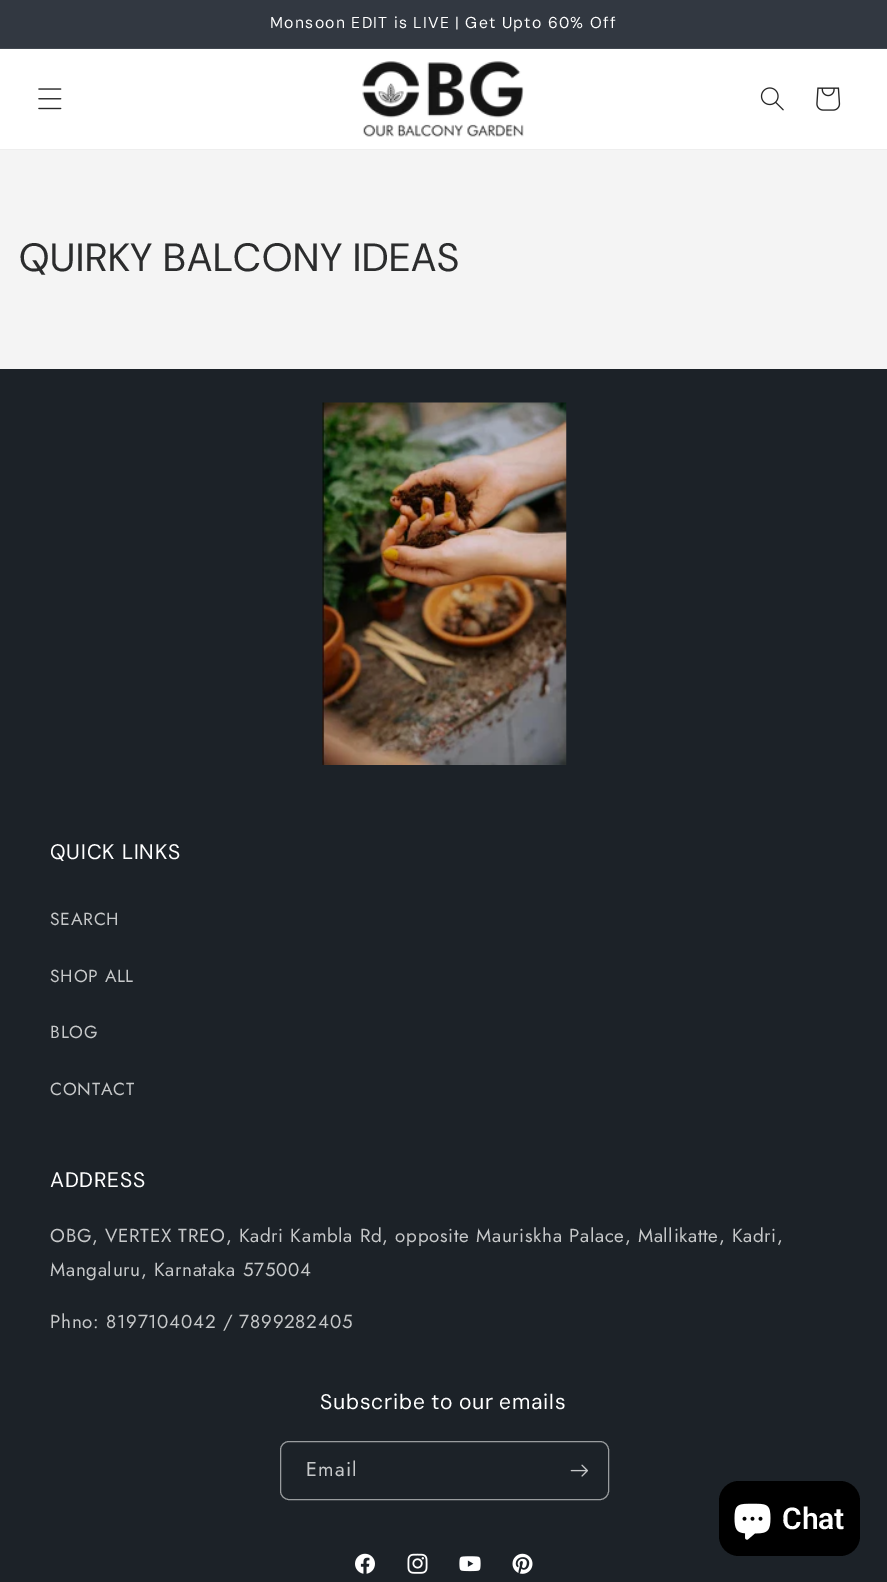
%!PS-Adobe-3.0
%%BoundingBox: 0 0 887 1582
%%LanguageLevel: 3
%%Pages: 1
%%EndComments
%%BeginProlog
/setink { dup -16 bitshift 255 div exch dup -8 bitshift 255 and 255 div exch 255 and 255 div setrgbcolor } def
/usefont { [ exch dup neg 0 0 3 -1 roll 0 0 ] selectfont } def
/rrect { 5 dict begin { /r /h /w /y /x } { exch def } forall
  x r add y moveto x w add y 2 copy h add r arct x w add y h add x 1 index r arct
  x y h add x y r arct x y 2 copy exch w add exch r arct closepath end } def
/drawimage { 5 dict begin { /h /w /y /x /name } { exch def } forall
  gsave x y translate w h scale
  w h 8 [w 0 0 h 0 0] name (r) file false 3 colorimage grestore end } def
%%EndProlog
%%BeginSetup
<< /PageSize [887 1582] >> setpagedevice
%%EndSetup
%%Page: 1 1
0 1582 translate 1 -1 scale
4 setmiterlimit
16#F4F4F4 setink
0 0 887 1582 rectfill
16#323841 setink
0 0 887 48 rectfill
16#424850 setink
0 48 887 1 rectfill
/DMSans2-Regular 15.75 usefont
16#FFFFFF setink
270 28 moveto -0.25 0 32 1.25 0 (Monsoon EDIT is LIVE | Get Upto 60% Off) awidthshow
0 49 887 100 rectfill
16#EEEEEE setink
0 149 887 1 rectfill
(img1.raw) 38 88 24 22 drawimage
(img2.raw) 362 61 162 76 drawimage
(img3.raw) 760 87 24 24 drawimage
(img4.raw) 816 87 25 24 drawimage
/DMSans-Regular 39.4 usefont
16#2B2C2D setink
19 271 moveto 0.75 0 (QUIRKY BALCONY IDEAS) ashow
16#1C2228 setink
0 369 887 1213 rectfill
(img5.raw) 322 402 245 363 drawimage
/DMSans2-Regular 21 usefont
16#FFFFFF setink
50 859 moveto 0.75 0 (QUICK LINKS) ashow
/Jost-Regular 17.5 usefont
16#C6C8C9 setink
50 925 moveto 0.75 0 (SEARCH) ashow
50 982 moveto 0.75 0 (SHOP ALL) ashow
50 1038 moveto 0.75 0 (BLOG) ashow
50 1095 moveto 0.75 0 (CONTACT) ashow
/DMSans2-Regular 21 usefont
16#FFFFFF setink
50 1187 moveto 0.75 0 (ADDRESS) ashow
/Jost-Regular 18.75 usefont
16#C6C8C9 setink
50 1242 moveto 0.75 0 (OBG, VERTEX TREO, Kadri Kambla Rd, opposite Mauriskha Palace, Mallikatte, Kadri,) ashow
50 1276 moveto 0.75 0 (Mangaluru, Karnataka 575004) ashow
50 1328 moveto 0.75 0 (Phno: 8197104042 / 7899282405) ashow
/DMSans2-Regular 21 usefont
16#FFFFFF setink
320 1409 moveto -1 0 32 0.75 0 (Subscribe to our emails) awidthshow
16#999C9E setink
280.5 1441.5 328 58 8.5 rrect stroke
/Jost-Regular 20 usefont
16#C6C8C9 setink
306 1476 moveto 1.25 0 (Email) ashow
(img6.raw) 570 1464 18 13 drawimage
(img7.raw) 355 1553 20 21 drawimage
(img8.raw) 407 1553 21 21 drawimage
(img9.raw) 459 1556 22 16 drawimage
(img10.raw) 512 1553 21 21 drawimage
16#000000 setink
719 1481 141 75 20 rrect fill
(img11.raw) 734 1503 37 37 drawimage
/Roboto-SemiBold 30 usefont
16#FFFFFF setink
782 1529 moveto (Chat) show
showpage
%%EOF
